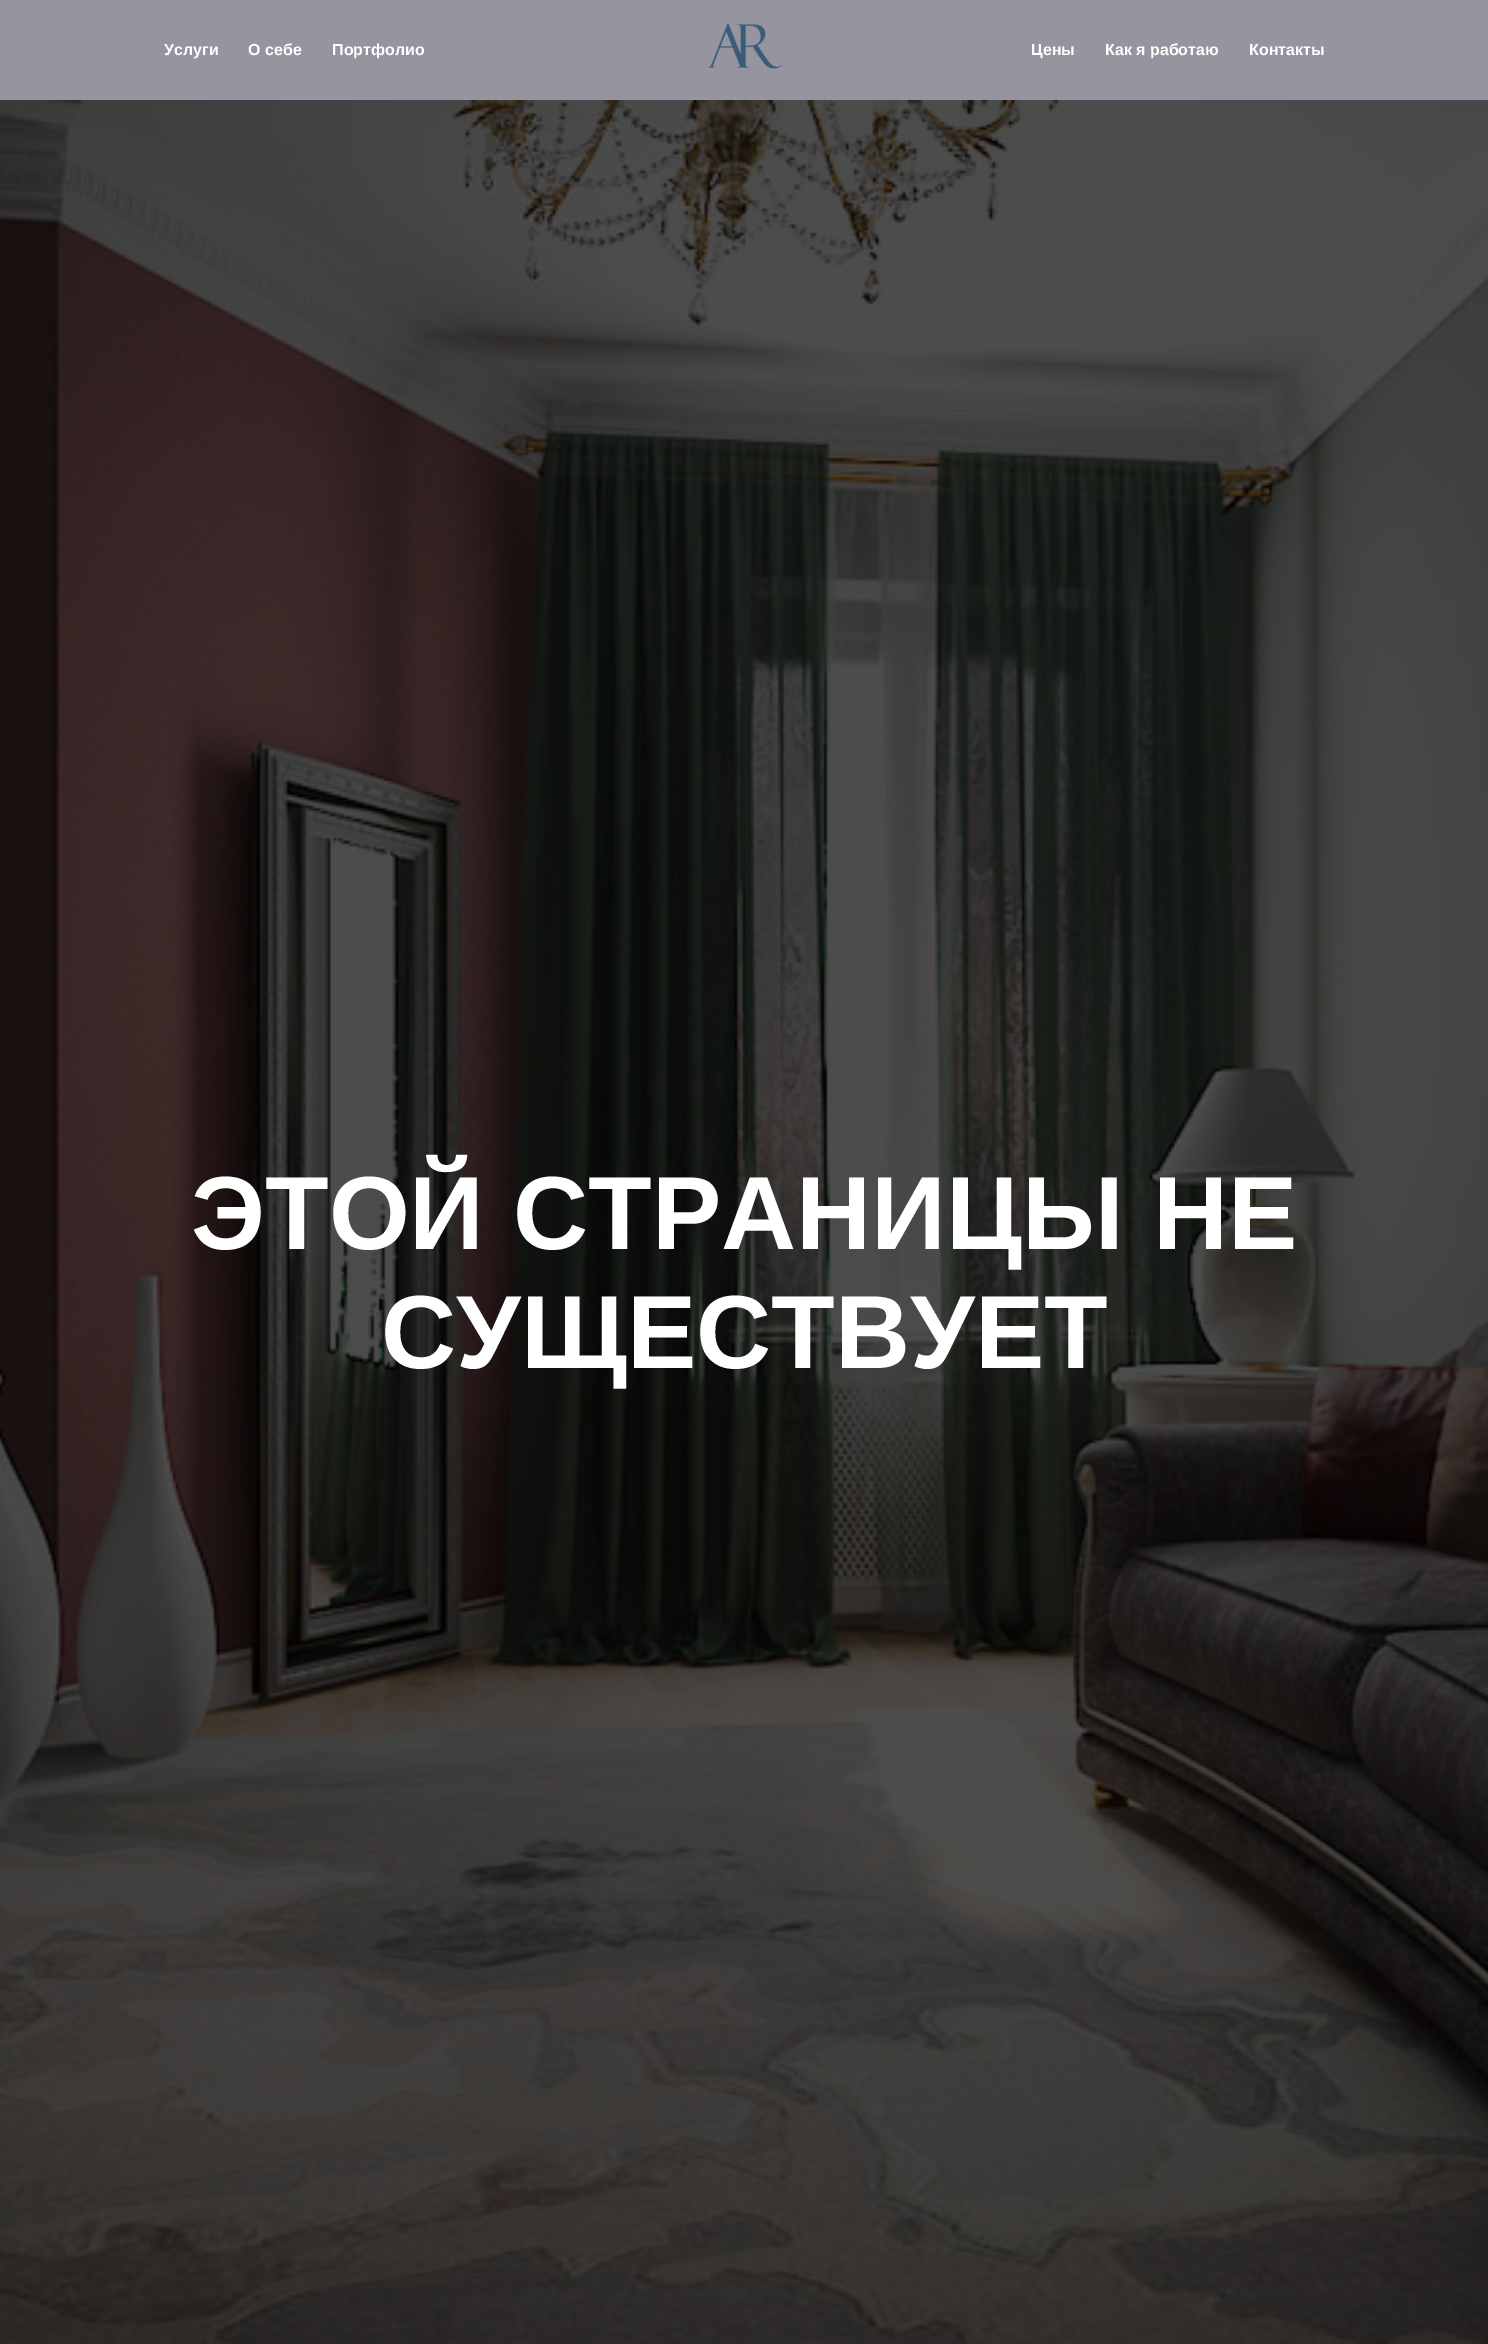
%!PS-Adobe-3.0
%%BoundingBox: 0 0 1488 2344
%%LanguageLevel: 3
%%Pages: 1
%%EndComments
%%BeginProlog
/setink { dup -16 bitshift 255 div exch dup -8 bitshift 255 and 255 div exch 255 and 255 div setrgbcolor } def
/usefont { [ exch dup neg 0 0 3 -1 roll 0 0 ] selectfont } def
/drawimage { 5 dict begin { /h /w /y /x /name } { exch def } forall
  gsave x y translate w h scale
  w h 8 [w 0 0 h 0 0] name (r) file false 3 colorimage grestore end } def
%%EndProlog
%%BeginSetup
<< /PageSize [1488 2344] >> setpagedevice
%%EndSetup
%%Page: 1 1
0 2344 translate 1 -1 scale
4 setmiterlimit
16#95949F setink
0 0 1488 2344 rectfill
/LiberationSans-Bold 16 usefont
16#FFFFFF setink
[
    [(Услуги) 164 55]
    [(О себе) 248 55]
    [(Портфолио) 332 55]
] { aload pop moveto show } forall
(img1.raw) 707 23 76 46 drawimage
[
    [(Цены) 1031 55]
    [(Как я работаю) 1105 55]
    [(Контакты) 1249 55]
] { aload pop moveto show } forall
(img2.raw) 0 100 1488 2244 drawimage
/LiberationSans-Bold 104 usefont
191 1249 moveto (ЭТОЙ СТРАНИЦЫ НЕ) show
381 1368 moveto (СУЩЕСТВУЕТ) show
showpage
%%EOF
